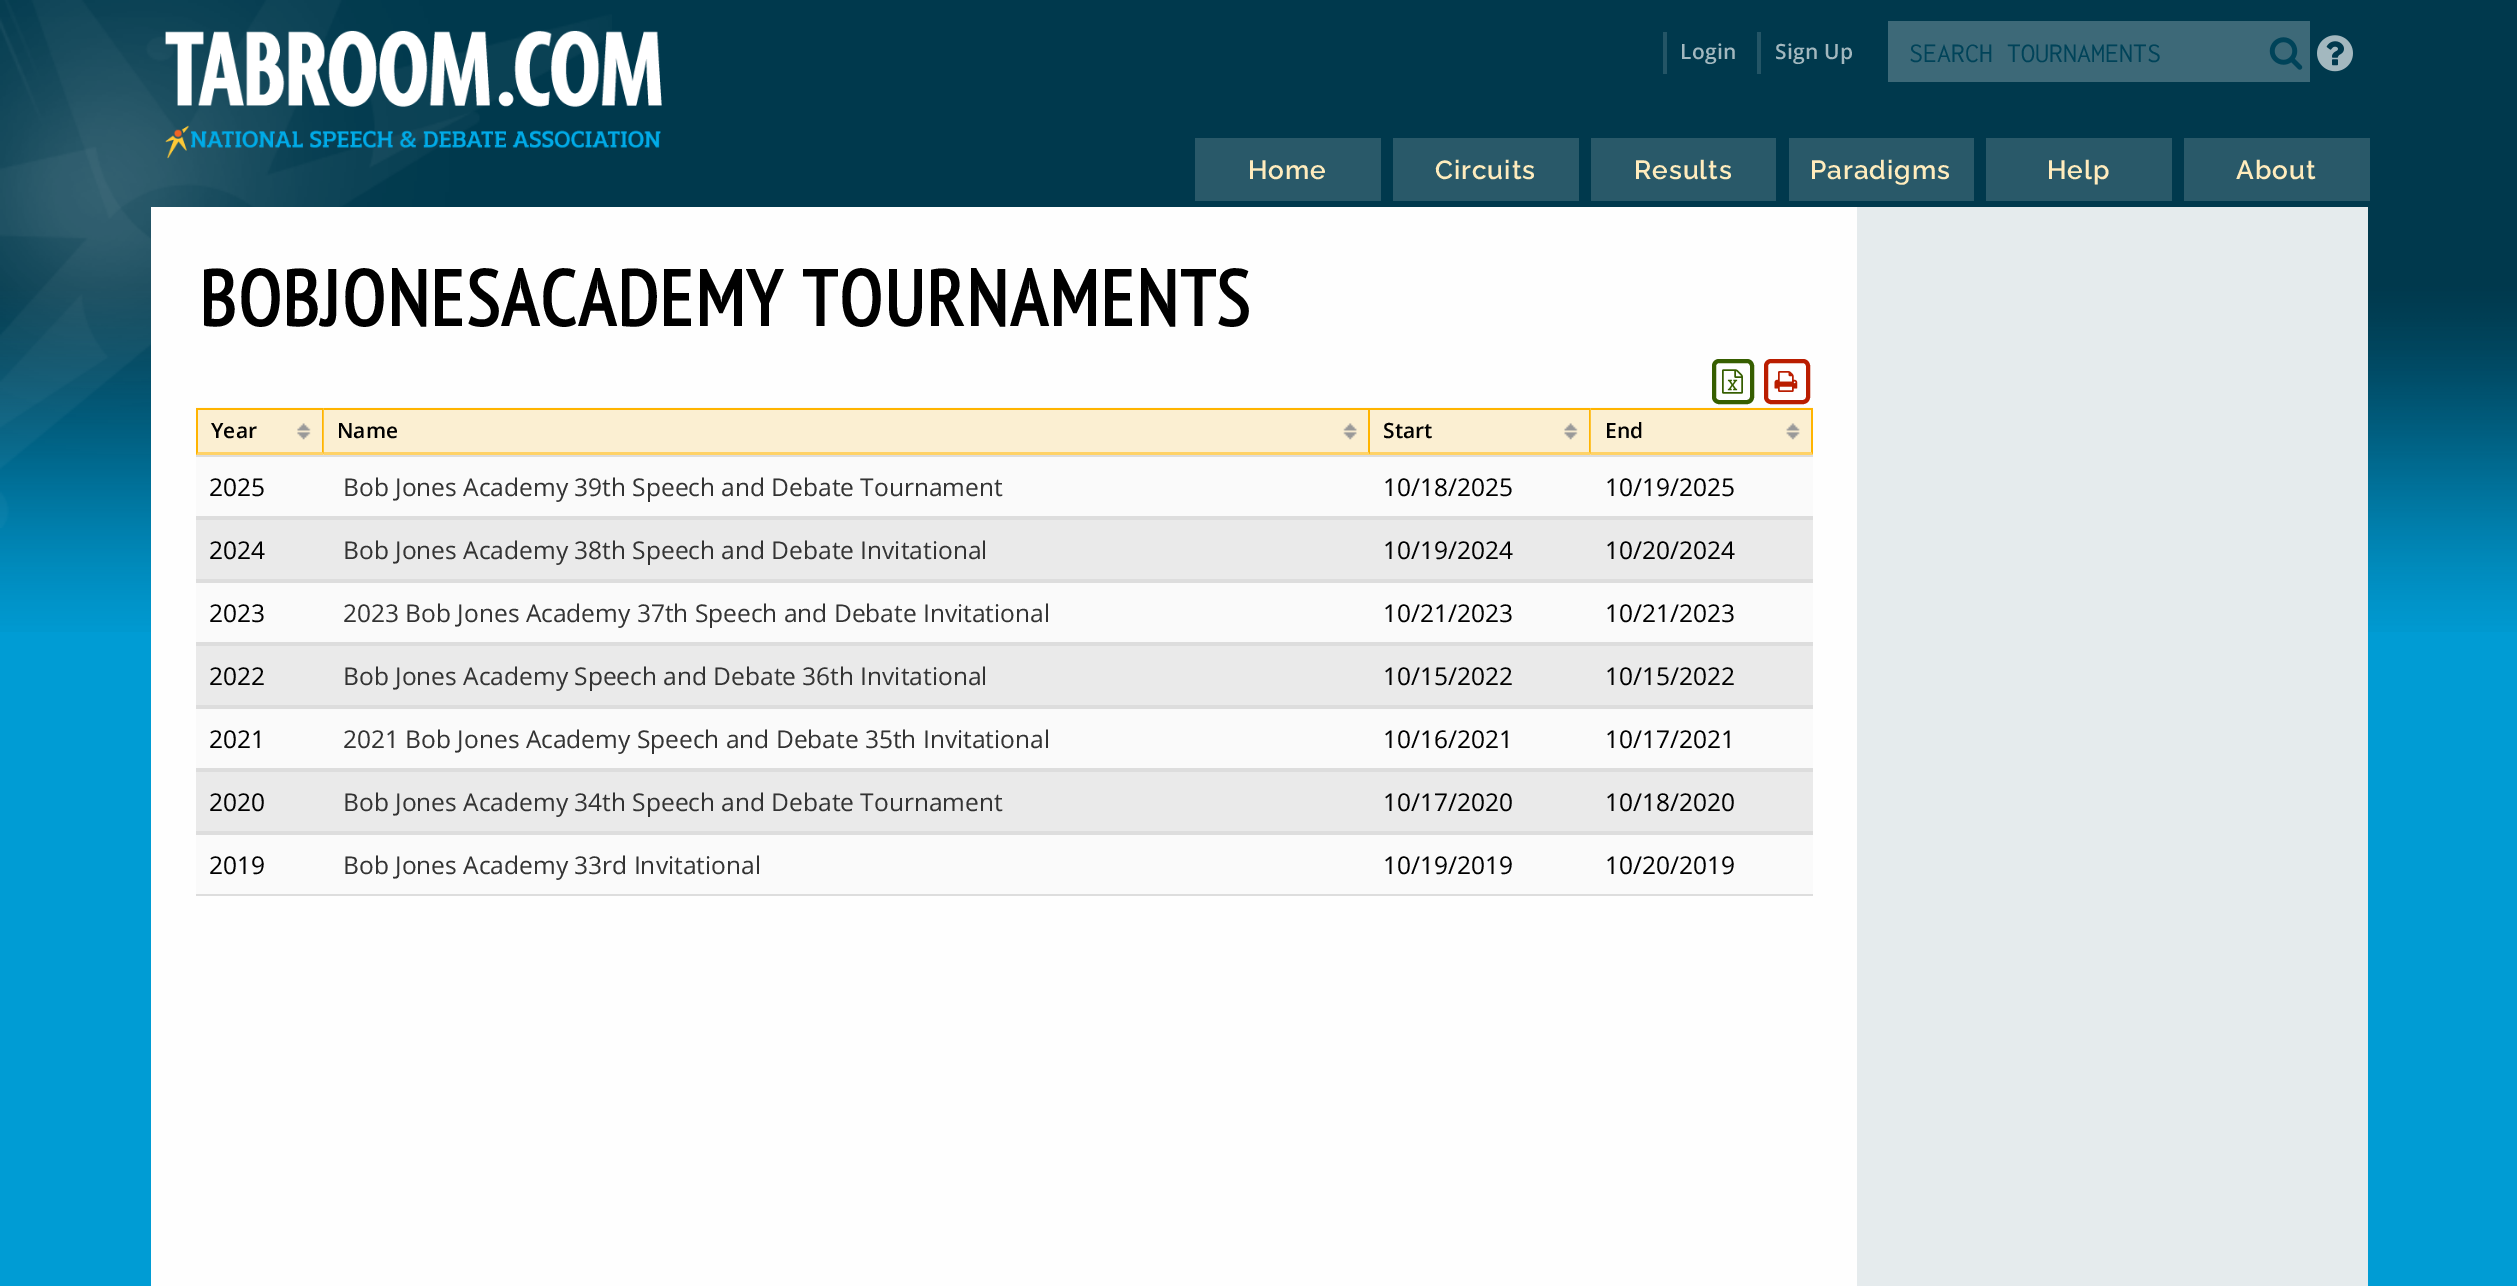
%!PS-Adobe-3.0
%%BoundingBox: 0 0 2517 1286
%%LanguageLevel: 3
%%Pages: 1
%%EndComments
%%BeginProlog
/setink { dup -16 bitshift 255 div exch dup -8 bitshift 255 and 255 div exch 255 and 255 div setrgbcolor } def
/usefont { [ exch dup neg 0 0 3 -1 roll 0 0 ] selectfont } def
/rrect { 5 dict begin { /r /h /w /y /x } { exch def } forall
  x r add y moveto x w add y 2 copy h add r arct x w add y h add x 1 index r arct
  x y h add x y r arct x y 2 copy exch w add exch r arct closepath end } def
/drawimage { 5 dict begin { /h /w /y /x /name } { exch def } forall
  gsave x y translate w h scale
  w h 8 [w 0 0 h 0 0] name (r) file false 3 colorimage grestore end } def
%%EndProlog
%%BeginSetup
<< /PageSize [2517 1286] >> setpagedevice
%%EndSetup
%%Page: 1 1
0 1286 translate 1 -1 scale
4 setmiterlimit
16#009CD4 setink
0 0 2517 1286 rectfill
(img1.raw) 0 0 2517 632 drawimage
(img2.raw) 0 0 612 528 drawimage
(img3.raw) 165 30 497 129 drawimage
16#245566 setink
1663 32 4 42 rectfill
/OpenSans-SemiBold 21 usefont
16#A3B8BF setink
1680 59 moveto 0.25 0 (Login) ashow
16#245566 setink
1757 32 4 42 rectfill
16#A3B8BF setink
1775 59 moveto 0.25 0 (Sign Up) ashow
16#3D6978 setink
1888 21 422 61 rectfill
/Inconsolata-Regular 28 usefont
16#004359 setink
1909 62 moveto (SEARCH TOURNAMENTS) show
(img4.raw) 2269 37 34 33 drawimage
(img5.raw) 2317 35 36 37 drawimage
16#295969 setink
1195 138 186 63 rectfill
/Raleway-SemiBold 26.25 usefont
16#FFECBD setink
1248 179 moveto 0.9 0 (Home) ashow
16#295969 setink
1393 138 186 63 rectfill
16#FFECBD setink
1435 179 moveto 0.9 0 (Circuits) ashow
16#295969 setink
1591 138 185 63 rectfill
16#FFECBD setink
1634 179 moveto 0.9 0 (Results) ashow
16#295969 setink
1789 138 185 63 rectfill
16#FFECBD setink
1810 179 moveto 0.9 0 (Paradigms) ashow
16#295969 setink
1986 138 186 63 rectfill
16#FFECBD setink
2047 179 moveto 0.9 0 (Help) ashow
16#295969 setink
2184 138 186 63 rectfill
16#FFECBD setink
2236 179 moveto 0.9 0 (About) ashow
16#E5EBED setink
1857 207 511 1079 rectfill
16#FEFEFE setink
151 207 1706 1079 rectfill
/PTSansNarrow-Bold 78.4 usefont
16#000000 setink
199 326 moveto 1.75 0 (BOBJONESACADEMY TOURNAMENTS) ashow
16#365E00 setink
4 setlinewidth
1714 361 38 41 5 rrect stroke
(img6.raw) 1722 369 21 25 drawimage
16#BA1D00 setink
1766 361 42 41 5 rrect stroke
(img7.raw) 1774 371 24 21 drawimage
16#FBEFD2 setink
196 410 1395 45 rectfill
(img8.raw) 196 407 128 33 drawimage
16#FFB400 setink
196 408 128 2 rectfill
324 408 moveto 324 455 lineto 322 452 lineto 322 410 lineto closepath fill
16#FFD267 setink
324 455 moveto 196 455 lineto 198 452 lineto 322 452 lineto closepath fill
16#FFB400 setink
196 455 moveto 196 408 lineto 198 410 lineto 198 452 lineto closepath fill
/OpenSans-SemiBold 21 usefont
16#000000 setink
211 438 moveto (Year) show
(img9.raw) 323 407 1047 48 drawimage
16#FFB400 setink
324 408 1046 2 rectfill
1370 408 moveto 1370 455 lineto 1368 452 lineto 1368 410 lineto closepath fill
16#FFD267 setink
1370 455 moveto 324 455 lineto 324 452 lineto 1368 452 lineto closepath fill
16#000000 setink
337 438 moveto (Name) show
(img10.raw) 1370 407 221 33 drawimage
16#FFB400 setink
1370 408 221 2 rectfill
1591 408 moveto 1591 455 lineto 1589 452 lineto 1589 410 lineto closepath fill
16#FFD267 setink
1591 455 moveto 1370 455 lineto 1370 452 lineto 1589 452 lineto closepath fill
16#000000 setink
1383 438 moveto (Start) show
(img11.raw) 1590 407 223 48 drawimage
16#FFB400 setink
1591 408 222 2 rectfill
1813 408 moveto 1813 455 lineto 1811 452 lineto 1811 410 lineto closepath fill
16#FFD267 setink
1813 455 moveto 1591 455 lineto 1591 452 lineto 1811 452 lineto closepath fill
16#000000 setink
1605 438 moveto (End) show
[
    [196 457 1617 59 16#FAFAFA]
    [196 455 1617 2 16#DDDDDD]
    [196 516 1617 4 16#DDDDDD]
] { aload pop setink rectfill } forall
/OpenSans-Regular 24.5 usefont
16#000000 setink
209 496 moveto (2025) show
16#333333 setink
343 496 moveto (Bob Jones Academy 39th Speech and Debate Tournament) show
16#000000 setink
1383 496 moveto (10/18/2025) show
1605 496 moveto (10/19/2025) show
16#EAEAEA setink
196 520 1617 59 rectfill
16#DDDDDD setink
196 579 1617 4 rectfill
16#000000 setink
209 559 moveto (2024) show
16#333333 setink
343 559 moveto (Bob Jones Academy 38th Speech and Debate Invitational) show
16#000000 setink
1383 559 moveto (10/19/2024) show
1605 559 moveto (10/20/2024) show
16#FAFAFA setink
196 583 1617 59 rectfill
16#DDDDDD setink
196 642 1617 4 rectfill
16#000000 setink
209 622 moveto (2023) show
16#333333 setink
343 622 moveto (2023 Bob Jones Academy 37th Speech and Debate Invitational) show
16#000000 setink
1383 622 moveto (10/21/2023) show
1605 622 moveto (10/21/2023) show
16#EAEAEA setink
196 646 1617 59 rectfill
16#DDDDDD setink
196 705 1617 4 rectfill
16#000000 setink
209 685 moveto (2022) show
16#333333 setink
343 685 moveto (Bob Jones Academy Speech and Debate 36th Invitational) show
16#000000 setink
1383 685 moveto (10/15/2022) show
1605 685 moveto (10/15/2022) show
16#FAFAFA setink
196 709 1617 59 rectfill
16#DDDDDD setink
196 768 1617 4 rectfill
16#000000 setink
209 748 moveto (2021) show
16#333333 setink
343 748 moveto (2021 Bob Jones Academy Speech and Debate 35th Invitational) show
16#000000 setink
1383 748 moveto (10/16/2021) show
1605 748 moveto (10/17/2021) show
16#EAEAEA setink
196 772 1617 59 rectfill
16#DDDDDD setink
196 831 1617 4 rectfill
16#000000 setink
209 811 moveto (2020) show
16#333333 setink
343 811 moveto (Bob Jones Academy 34th Speech and Debate Tournament) show
16#000000 setink
1383 811 moveto (10/17/2020) show
1605 811 moveto (10/18/2020) show
16#FAFAFA setink
196 835 1617 59 rectfill
16#DDDDDD setink
196 894 1617 2 rectfill
16#000000 setink
209 874 moveto (2019) show
16#333333 setink
343 874 moveto (Bob Jones Academy 33rd Invitational) show
16#000000 setink
1383 874 moveto (10/19/2019) show
1605 874 moveto (10/20/2019) show
showpage
%%EOF
